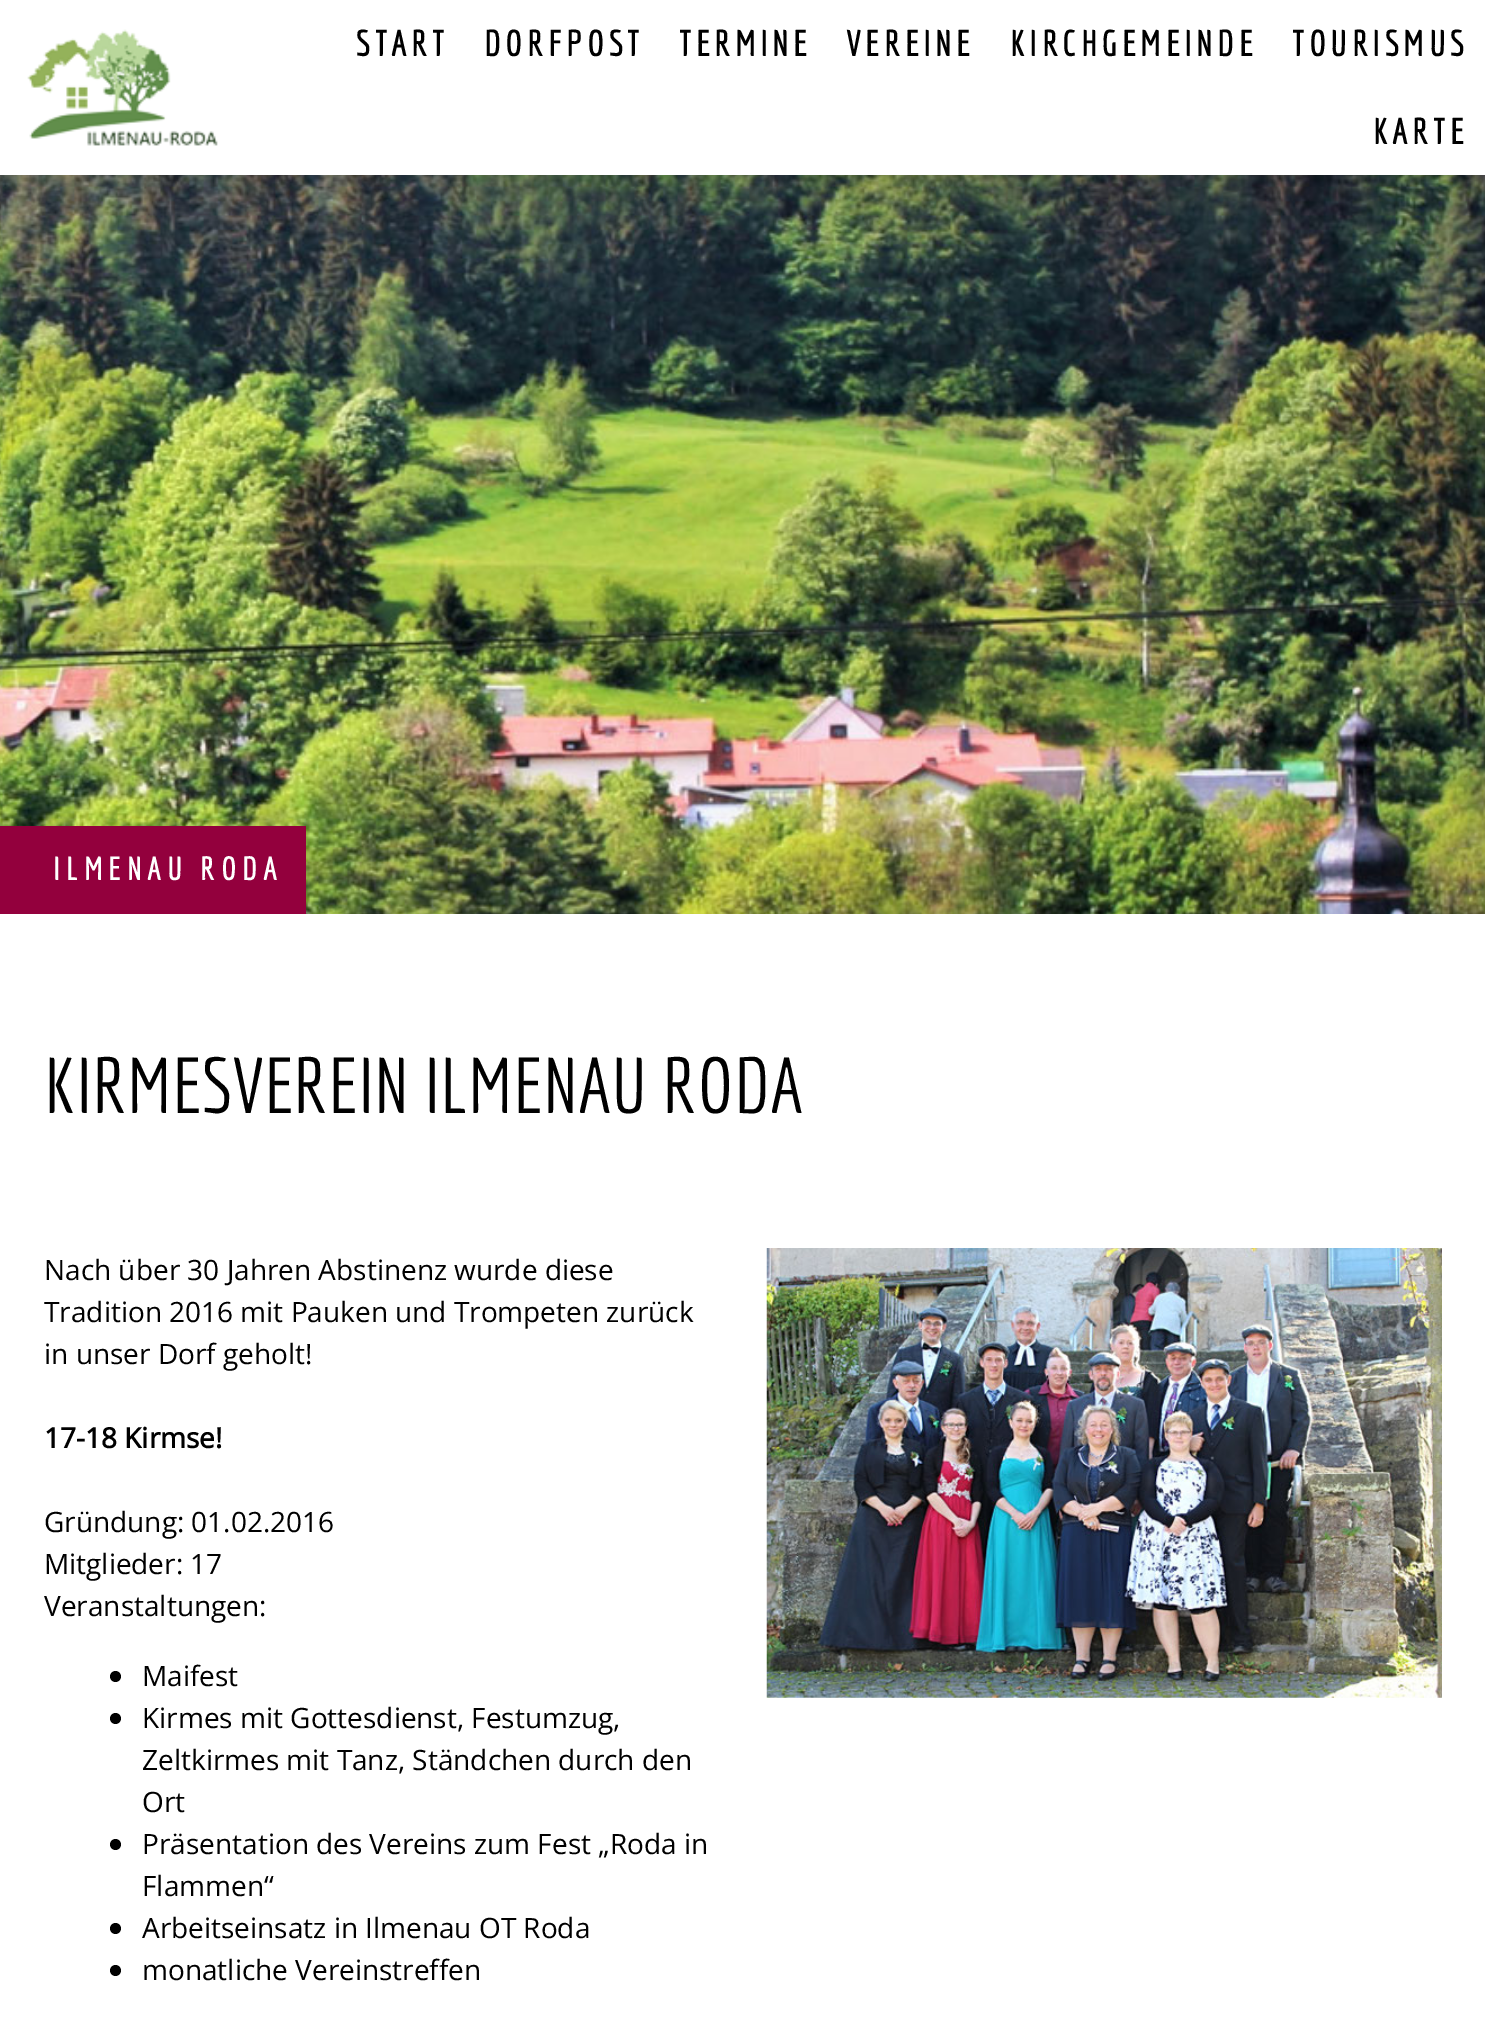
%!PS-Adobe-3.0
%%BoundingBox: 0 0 1485 2019
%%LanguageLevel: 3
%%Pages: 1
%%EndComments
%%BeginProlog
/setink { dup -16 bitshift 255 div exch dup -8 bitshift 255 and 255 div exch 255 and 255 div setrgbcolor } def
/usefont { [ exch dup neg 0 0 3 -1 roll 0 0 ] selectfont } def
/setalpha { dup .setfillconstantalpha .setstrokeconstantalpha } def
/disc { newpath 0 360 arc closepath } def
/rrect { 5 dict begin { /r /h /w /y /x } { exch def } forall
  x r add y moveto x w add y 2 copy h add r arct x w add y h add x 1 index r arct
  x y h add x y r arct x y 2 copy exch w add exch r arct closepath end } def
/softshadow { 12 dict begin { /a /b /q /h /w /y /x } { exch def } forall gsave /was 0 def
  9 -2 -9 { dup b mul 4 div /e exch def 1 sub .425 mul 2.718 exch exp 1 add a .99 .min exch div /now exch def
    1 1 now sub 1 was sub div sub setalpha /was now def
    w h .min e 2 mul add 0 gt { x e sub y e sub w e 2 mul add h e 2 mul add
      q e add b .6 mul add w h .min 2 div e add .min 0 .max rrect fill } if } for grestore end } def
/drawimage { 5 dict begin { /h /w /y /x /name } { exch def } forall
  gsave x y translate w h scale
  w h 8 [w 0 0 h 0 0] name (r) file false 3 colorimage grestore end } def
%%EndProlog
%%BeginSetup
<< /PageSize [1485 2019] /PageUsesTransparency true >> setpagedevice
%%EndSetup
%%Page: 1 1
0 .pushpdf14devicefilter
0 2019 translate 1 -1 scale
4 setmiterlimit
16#FFFFFF setink
0 0 1485 2019 rectfill
(img2.raw) 0 175 1485 739 drawimage
16#000000 setink
0 0 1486 175 0 26 0.2 softshadow
16#FFFFFF setink
0 0 1485 175 rectfill
(img1.raw) 27 29 191 117 drawimage
/Economica-Bold 35 usefont
16#000000 setink
356 56 moveto 4.9 0 (START) ashow
484 56 moveto 4.9 0 (DORFPOST) ashow
679 56 moveto 4.9 0 (TERMINE) ashow
846 56 moveto 4.9 0 (VEREINE) ashow
1010 56 moveto 4.9 0 (KIRCHGEMEINDE) ashow
1292 56 moveto 4.9 0 (TOURISMUS) ashow
1373 144 moveto 4.9 0 (KARTE) ashow
16#93003D setink
0 826 306 88 rectfill
/Economica-Bold 31.5 usefont
16#FFFFFF setink
53 880 moveto 6.25 0 (ILMENAU RODA) ashow
/Economica-Regular 77 usefont
16#000000 setink
44 1113 moveto (KIRMESVEREIN ILMENAU RODA) show
/OpenSans-Regular 28 usefont
[
    [(Nach über 30 Jahren Abstinenz wurde diese) 44 1280]
    [(Tradition 2016 mit Pauken und Trompeten zurück) 44 1322]
    [(in unser Dorf geholt!) 44 1364]
] { aload pop moveto show } forall
/OpenSans-Bold 28 usefont
44 1448 moveto (17-18 Kirmse!) show
/OpenSans-Regular 28 usefont
[
    [(Gründung: 01.02.2016) 44 1532]
    [(Mitglieder: 17) 44 1574]
    [(Veranstaltungen:) 44 1616]
] { aload pop moveto show } forall
115.5 1676.5 5.5 disc fill
142 1686 moveto (Maifest) show
115.5 1718.5 5.5 disc fill
[
    [(Kirmes mit Gottesdienst, Festumzug,) 142 1728]
    [(Zeltkirmes mit Tanz, Ständchen durch den) 142 1770]
    [(Ort) 142 1812]
] { aload pop moveto show } forall
115.5 1844.5 5.5 disc fill
142 1854 moveto (Präsentation des Vereins zum Fest „Roda in) show
142 1896 moveto (Flammen“) show
115.5 1928.5 5.5 disc fill
142 1938 moveto (Arbeitseinsatz in Ilmenau OT Roda) show
115.5 1970.5 5.5 disc fill
142 1980 moveto (monatliche Vereinstreffen) show
(img3.raw) 766 1248 676 450 drawimage
.poppdf14devicefilter showpage
%%EOF
